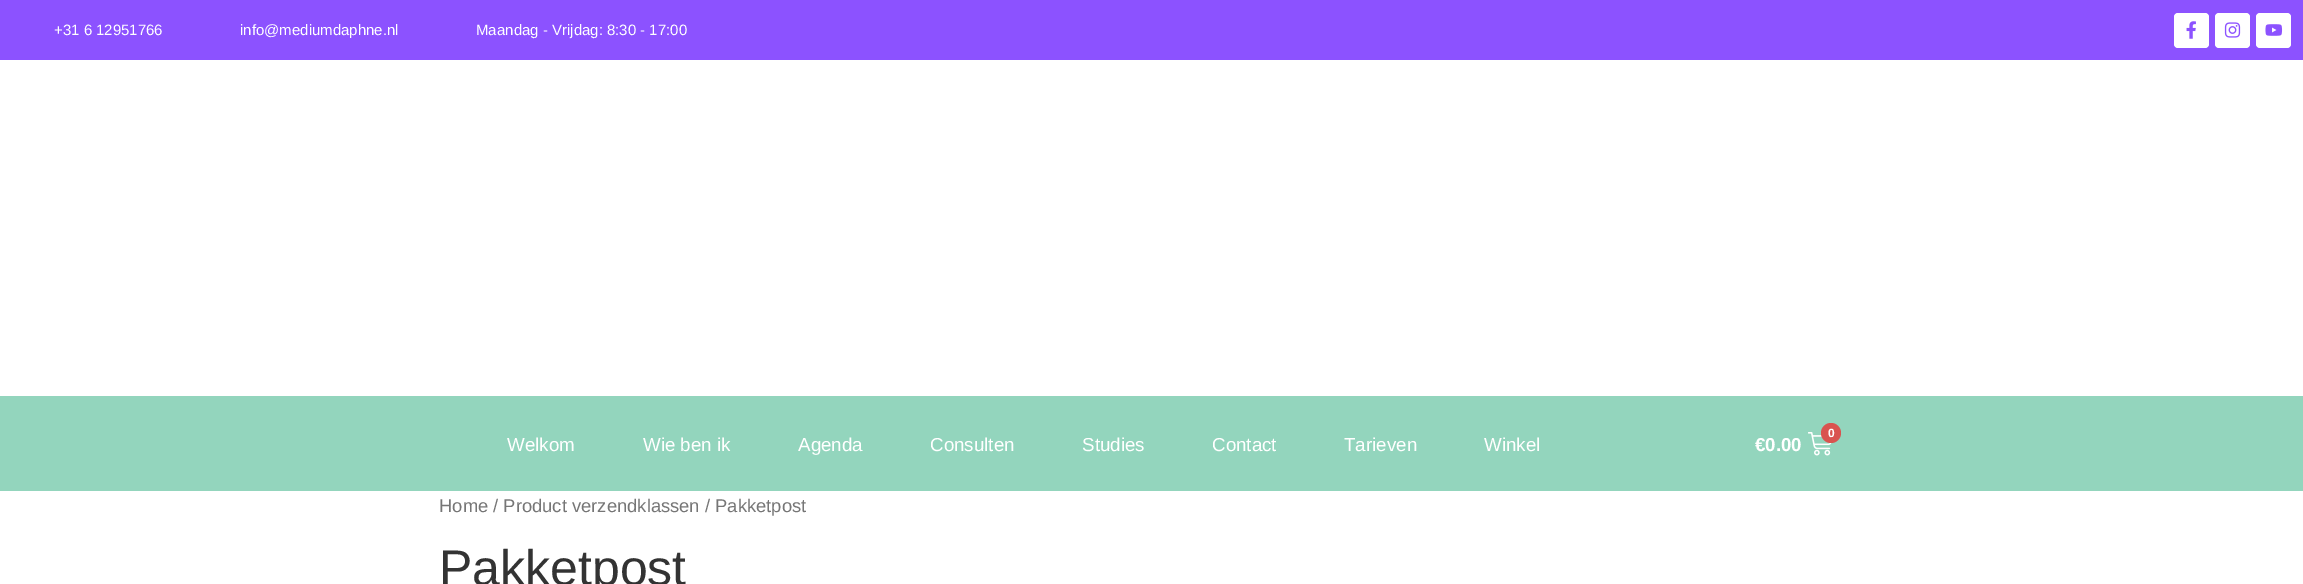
%!PS-Adobe-3.0
%%BoundingBox: 0 0 2303 584
%%LanguageLevel: 3
%%Pages: 1
%%EndComments
%%BeginProlog
/setink { dup -16 bitshift 255 div exch dup -8 bitshift 255 and 255 div exch 255 and 255 div setrgbcolor } def
/usefont { [ exch dup neg 0 0 3 -1 roll 0 0 ] selectfont } def
/disc { newpath 0 360 arc closepath } def
/rrect { 5 dict begin { /r /h /w /y /x } { exch def } forall
  x r add y moveto x w add y 2 copy h add r arct x w add y h add x 1 index r arct
  x y h add x y r arct x y 2 copy exch w add exch r arct closepath end } def
/drawimage { 5 dict begin { /h /w /y /x /name } { exch def } forall
  gsave x y translate w h scale
  w h 8 [w 0 0 h 0 0] name (r) file false 3 colorimage grestore end } def
%%EndProlog
%%BeginSetup
<< /PageSize [2303 584] >> setpagedevice
%%EndSetup
%%Page: 1 1
0 584 translate 1 -1 scale
4 setmiterlimit
16#FFFFFF setink
0 0 2303 584 rectfill
16#8C52FF setink
0 0 2303 60 rectfill
/LiberationSans-Regular 15 usefont
16#FFFFFF setink
[
    [(+31 6 12951766) 54 35]
    [(info@mediumdaphne.nl) 240 35]
    [(Maandag - Vrijdag: 8:30 - 17:00) 476 35]
] { aload pop moveto show } forall
2174 13 35 35 4 rrect fill
(img1.raw) 2186 21 10 18 drawimage
2215 13 35 35 4 rrect fill
(img2.raw) 2224 22 17 16 drawimage
2256 13 35 35 4 rrect fill
(img3.raw) 2265 24 18 12 drawimage
16#93D5BD setink
0 396 2303 95 rectfill
/LiberationSans-Regular 18.75 usefont
16#FFFFFF setink
[
    [(Welkom) 507 451]
    [(Wie ben ik) 643 451]
    [(Agenda) 798 451]
    [(Consulten) 930 451]
    [(Studies) 1082 451]
    [(Contact) 1212 451]
    [(Tarieven) 1344 451]
    [(Winkel) 1484 451]
] { aload pop moveto show } forall
(img4.raw) 1808 432 24 24 drawimage
16#D9534F setink
1831 433 10 disc fill
/LiberationSans-Bold 12 usefont
16#FFFFFF setink
1828 437 moveto (0) show
/LiberationSans-Bold 18.75 usefont
1755 451 moveto (€0.00) show
/LiberationSans-Regular 18.4 usefont
16#767676 setink
439 512 moveto (Home / Product verzendklassen / Pakketpost) show
/LiberationSans-Regular 50 usefont
16#333333 setink
439 585 moveto (Pakketpost) show
showpage
%%EOF
